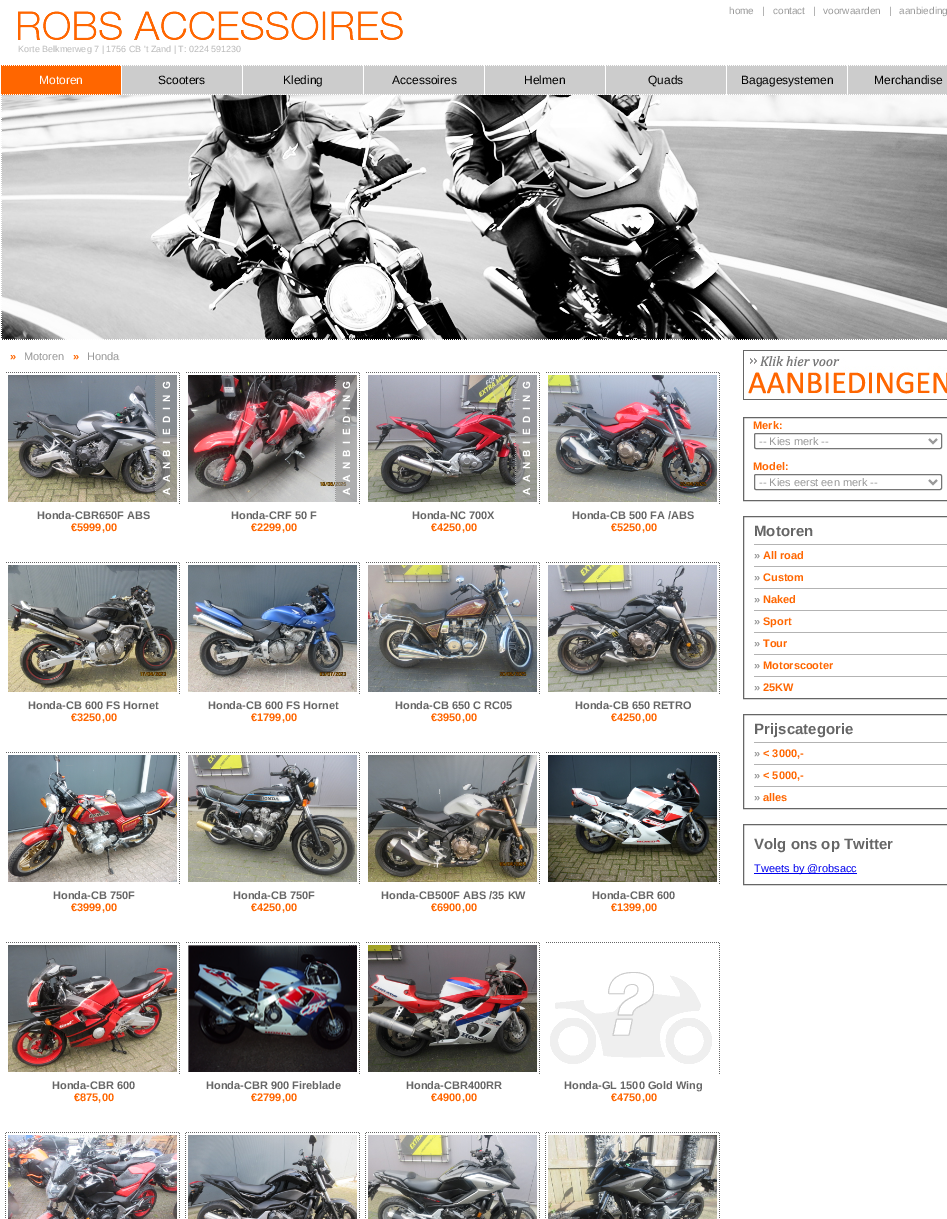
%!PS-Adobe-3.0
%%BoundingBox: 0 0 947 1219
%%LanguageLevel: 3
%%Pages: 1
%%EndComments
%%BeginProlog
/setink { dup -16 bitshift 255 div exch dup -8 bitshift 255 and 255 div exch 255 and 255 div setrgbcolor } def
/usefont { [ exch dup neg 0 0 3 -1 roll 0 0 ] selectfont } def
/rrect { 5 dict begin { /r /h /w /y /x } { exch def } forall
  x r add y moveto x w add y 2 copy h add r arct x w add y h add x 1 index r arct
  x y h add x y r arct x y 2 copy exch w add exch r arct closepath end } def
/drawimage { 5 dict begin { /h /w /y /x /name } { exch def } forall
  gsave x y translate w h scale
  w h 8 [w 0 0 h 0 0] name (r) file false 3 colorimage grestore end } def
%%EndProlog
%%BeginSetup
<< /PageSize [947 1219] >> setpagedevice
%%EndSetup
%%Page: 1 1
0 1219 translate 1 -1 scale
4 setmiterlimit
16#FFFFFF setink
0 0 947 1219 rectfill
/LiberationSans-Regular 10 usefont
16#999999 setink
[
    [(home) 729 14]
    [(|) 762 14]
    [(contact) 773 14]
    [(|) 813 14]
    [(voorwaarden) 823 14]
    [(|) 889 14]
    [(aanbieding) 899 14]
] { aload pop moveto show } forall
(img1.raw) 18 11 385 29 drawimage
/LiberationSans-Regular 9 usefont
16#BBBBBB setink
18 52 moveto (Korte Belkmerweg 7 | 1756 CB 't Zand | T: 0224 591230) show
16#FF6600 setink
1 65 120 30 rectfill
(img2.raw) 2 65 119 1 drawimage
/LiberationSans-Regular 12 usefont
16#FFFFFF setink
39 84 moveto (Motoren) show
16#CCCCCC setink
122 65 120 30 rectfill
(img3.raw) 123 65 119 1 drawimage
16#000000 setink
158 84 moveto (Scooters) show
16#CCCCCC setink
243 65 120 30 rectfill
(img3.raw) 244 65 119 1 drawimage
16#000000 setink
283 84 moveto (Kleding) show
16#CCCCCC setink
364 65 120 30 rectfill
(img3.raw) 365 65 119 1 drawimage
16#000000 setink
392 84 moveto (Accessoires) show
16#CCCCCC setink
485 65 120 30 rectfill
(img3.raw) 486 65 119 1 drawimage
16#000000 setink
524 84 moveto (Helmen) show
16#CCCCCC setink
606 65 120 30 rectfill
(img3.raw) 607 65 119 1 drawimage
16#000000 setink
648 84 moveto (Quads) show
16#CCCCCC setink
727 65 120 30 rectfill
(img3.raw) 728 65 119 1 drawimage
16#000000 setink
741 84 moveto (Bagagesystemen) show
16#CCCCCC setink
848 65 99 30 rectfill
(img4.raw) 849 65 97 1 drawimage
16#000000 setink
874 84 moveto (Merchandise) show
(img5.raw) 1 94 945 1 drawimage
(img6.raw) 1 95 946 245 drawimage
(img7.raw) 1 96 1 243 drawimage
(img8.raw) 1 339 945 1 drawimage
/LiberationSans-Bold 11 usefont
16#FF6600 setink
10 360 moveto (») show
/LiberationSans-Regular 11 usefont
16#999999 setink
24 360 moveto (Motoren) show
/LiberationSans-Bold 11 usefont
16#FF6600 setink
73 360 moveto (») show
/LiberationSans-Regular 11 usefont
16#999999 setink
87 360 moveto (Honda) show
(img9.raw) 6 372 174 132 drawimage
(img10.raw) 8 375 169 127 drawimage
(img11.raw) 155 375 22 127 drawimage
/LiberationSans-Bold 11 usefont
16#666666 setink
37 519 moveto (Honda-CBR650F ABS) show
16#FF6600 setink
71 531 moveto (€5999,00) show
(img9.raw) 186 372 174 132 drawimage
(img12.raw) 188 375 169 127 drawimage
(img13.raw) 335 375 22 127 drawimage
16#666666 setink
231 519 moveto (Honda-CRF 50 F) show
16#FF6600 setink
251 531 moveto (€2299,00) show
(img9.raw) 366 372 174 132 drawimage
(img14.raw) 368 375 169 127 drawimage
(img15.raw) 515 375 22 127 drawimage
16#666666 setink
412 519 moveto (Honda-NC 700X) show
16#FF6600 setink
431 531 moveto (€4250,00) show
(img9.raw) 546 372 174 132 drawimage
(img16.raw) 548 375 169 127 drawimage
16#666666 setink
572 519 moveto (Honda-CB 500 FA /ABS) show
16#FF6600 setink
611 531 moveto (€5250,00) show
(img9.raw) 6 562 174 132 drawimage
(img17.raw) 8 565 169 127 drawimage
16#666666 setink
28 709 moveto (Honda-CB 600 FS Hornet) show
16#FF6600 setink
71 721 moveto (€3250,00) show
(img9.raw) 186 562 174 132 drawimage
(img18.raw) 188 565 169 127 drawimage
16#666666 setink
208 709 moveto (Honda-CB 600 FS Hornet) show
16#FF6600 setink
251 721 moveto (€1799,00) show
(img9.raw) 366 562 174 132 drawimage
(img19.raw) 368 565 169 127 drawimage
16#666666 setink
395 709 moveto (Honda-CB 650 C RC05) show
16#FF6600 setink
431 721 moveto (€3950,00) show
(img9.raw) 546 562 174 132 drawimage
(img20.raw) 548 565 169 127 drawimage
16#666666 setink
575 709 moveto (Honda-CB 650 RETRO) show
16#FF6600 setink
611 721 moveto (€4250,00) show
(img9.raw) 6 752 174 132 drawimage
(img21.raw) 8 755 169 127 drawimage
16#666666 setink
53 899 moveto (Honda-CB 750F) show
16#FF6600 setink
71 911 moveto (€3999,00) show
(img9.raw) 186 752 174 132 drawimage
(img22.raw) 188 755 169 127 drawimage
16#666666 setink
233 899 moveto (Honda-CB 750F) show
16#FF6600 setink
251 911 moveto (€4250,00) show
(img9.raw) 366 752 174 132 drawimage
(img23.raw) 368 755 169 127 drawimage
16#666666 setink
381 899 moveto (Honda-CB500F ABS /35 KW) show
16#FF6600 setink
431 911 moveto (€6900,00) show
(img9.raw) 546 752 174 132 drawimage
(img24.raw) 548 755 169 127 drawimage
16#666666 setink
592 899 moveto (Honda-CBR 600) show
16#FF6600 setink
611 911 moveto (€1399,00) show
(img9.raw) 6 942 174 132 drawimage
(img25.raw) 8 945 169 127 drawimage
16#666666 setink
52 1089 moveto (Honda-CBR 600) show
16#FF6600 setink
74 1101 moveto (€875,00) show
(img9.raw) 186 942 174 132 drawimage
(img26.raw) 188 945 169 127 drawimage
16#666666 setink
206 1089 moveto (Honda-CBR 900 Fireblade) show
16#FF6600 setink
251 1101 moveto (€2799,00) show
(img9.raw) 366 942 174 132 drawimage
(img27.raw) 368 945 169 127 drawimage
16#666666 setink
406 1089 moveto (Honda-CBR400RR) show
16#FF6600 setink
431 1101 moveto (€4900,00) show
(img9.raw) 546 942 174 132 drawimage
(img28.raw) 550 945 167 119 drawimage
16#666666 setink
564 1089 moveto (Honda-GL 1500 Gold Wing) show
16#FF6600 setink
611 1101 moveto (€4750,00) show
(img29.raw) 5 1133 1 85 drawimage
(img30.raw) 6 1132 174 86 drawimage
(img31.raw) 8 1135 169 84 drawimage
(img29.raw) 185 1133 1 85 drawimage
(img30.raw) 186 1132 174 86 drawimage
(img32.raw) 188 1135 169 84 drawimage
(img29.raw) 365 1133 1 85 drawimage
(img30.raw) 366 1132 174 86 drawimage
(img33.raw) 368 1135 169 84 drawimage
(img29.raw) 545 1133 1 85 drawimage
(img30.raw) 546 1132 174 86 drawimage
(img34.raw) 548 1135 169 84 drawimage
(img35.raw) 743 350 204 50 drawimage
16#666666 setink
743.5 417.5 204 83 rectstroke
16#FF6600 setink
753 429 moveto (Merk:) show
16#767676 setink
754.5 433.5 187 15 1.5 rrect stroke
16#999999 setink
2 setlinewidth
929 439 moveto 933 443 lineto 937 439 lineto stroke
/LiberationSans-Regular 11 usefont
759 445 moveto (-- Kies merk --) show
/LiberationSans-Bold 11 usefont
16#FF6600 setink
753 470 moveto (Model:) show
16#767676 setink
1 setlinewidth
754.5 474.5 187 15 1.5 rrect stroke
16#999999 setink
2 setlinewidth
929 480 moveto 933 484 lineto 937 480 lineto stroke
/LiberationSans-Regular 11 usefont
759 486 moveto (-- Kies eerst een merk --) show
16#666666 setink
1 setlinewidth
743.5 516.5 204 182 rectstroke
/LiberationSans-Bold 15 usefont
754 536 moveto (Motoren) show
16#B3B3B3 setink
754 544 193 1 rectfill
/LiberationSans-Bold 11 usefont
16#999999 setink
754 559 moveto (») show
16#FF6600 setink
763 559 moveto (All road) show
16#B3B3B3 setink
754 566 193 1 rectfill
16#999999 setink
754 581 moveto (») show
16#FF6600 setink
763 581 moveto (Custom) show
16#B3B3B3 setink
754 588 193 1 rectfill
16#999999 setink
754 603 moveto (») show
16#FF6600 setink
763 603 moveto (Naked) show
16#B3B3B3 setink
754 610 193 1 rectfill
16#999999 setink
754 625 moveto (») show
16#FF6600 setink
763 625 moveto (Sport) show
16#B3B3B3 setink
754 632 193 1 rectfill
16#999999 setink
754 647 moveto (») show
16#FF6600 setink
763 647 moveto (Tour) show
16#B3B3B3 setink
754 654 193 1 rectfill
16#999999 setink
754 669 moveto (») show
16#FF6600 setink
763 669 moveto (Motorscooter) show
16#B3B3B3 setink
754 676 193 1 rectfill
16#999999 setink
754 691 moveto (») show
16#FF6600 setink
763 691 moveto (25KW) show
16#666666 setink
743.5 714.5 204 94 rectstroke
/LiberationSans-Bold 15 usefont
754 734 moveto (Prijscategorie) show
16#B3B3B3 setink
754 742 193 1 rectfill
/LiberationSans-Bold 11 usefont
16#999999 setink
754 757 moveto (») show
16#FF6600 setink
763 757 moveto (< 3000,-) show
16#B3B3B3 setink
754 764 193 1 rectfill
16#999999 setink
754 779 moveto (») show
16#FF6600 setink
763 779 moveto (< 5000,-) show
16#B3B3B3 setink
754 786 193 1 rectfill
16#999999 setink
754 801 moveto (») show
16#FF6600 setink
763 801 moveto (alles) show
16#666666 setink
743.5 824.5 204 60 rectstroke
/LiberationSans-Bold 15 usefont
754 849 moveto (Volg ons op Twitter) show
16#0000EE setink
754 873 103 1 rectfill
/LiberationSans-Regular 11 usefont
754 872 moveto (Tweets by @robsacc) show
showpage
%%EOF
